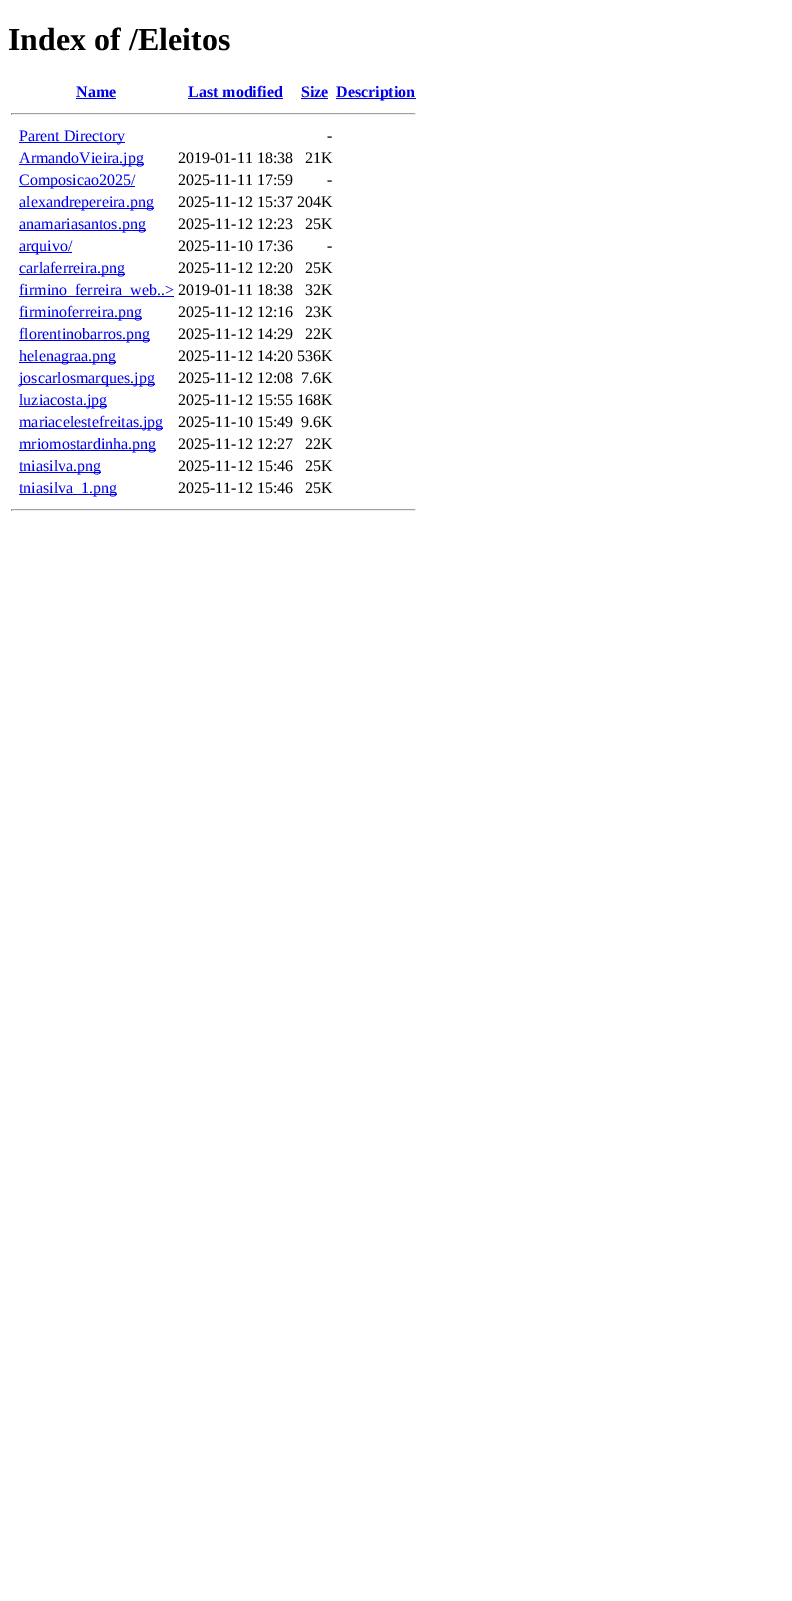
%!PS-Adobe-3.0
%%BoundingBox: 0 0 792 1601
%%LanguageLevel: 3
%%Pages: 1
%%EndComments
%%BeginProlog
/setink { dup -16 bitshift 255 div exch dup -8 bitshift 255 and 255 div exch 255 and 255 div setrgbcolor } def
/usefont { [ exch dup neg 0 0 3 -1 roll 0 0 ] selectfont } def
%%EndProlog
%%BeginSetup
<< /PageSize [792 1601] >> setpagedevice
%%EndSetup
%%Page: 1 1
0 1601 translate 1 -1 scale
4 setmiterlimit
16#FFFFFF setink
0 0 792 1601 rectfill
/LiberationSerif-Bold 32 usefont
16#000000 setink
8 50 moveto (Index of /Eleitos) show
/LiberationSerif-Bold 16 usefont
16#0000EE setink
76 97 moveto (Name) show
76 98 40 1 rectfill
188 97 moveto (Last modified) show
188 98 95 1 rectfill
301 97 moveto (Size) show
301 98 27 1 rectfill
336 98 80 1 rectfill
336 97 moveto (Description) show
[
    [11 113 405 1 16#9F9F9F]
    [415 113 1 2 16#EEEEEE]
    [11 114 405 1 16#EEEEEE]
    [11 113 1 2 16#9F9F9F]
    [19 142 106 1 16#0000EE]
] { aload pop setink rectfill } forall
/LiberationSerif-Regular 16 usefont
19 141 moveto (Parent Directory) show
16#000000 setink
327 141 moveto (-) show
16#0000EE setink
19 164 125 1 rectfill
19 163 moveto (ArmandoVieira.jpg) show
16#000000 setink
178 163 moveto (2019-01-11 18:38) show
305 163 moveto (21K) show
16#0000EE setink
19 186 116 1 rectfill
19 185 moveto (Composicao2025/) show
16#000000 setink
178 185 moveto (2025-11-11 17:59) show
327 185 moveto (-) show
16#0000EE setink
19 208 135 1 rectfill
19 207 moveto (alexandrepereira.png) show
16#000000 setink
178 207 moveto (2025-11-12 15:37 204K) show
16#0000EE setink
19 230 127 1 rectfill
19 229 moveto (anamariasantos.png) show
16#000000 setink
178 229 moveto (2025-11-12 12:23) show
305 229 moveto (25K) show
16#0000EE setink
19 252 53 1 rectfill
19 251 moveto (arquivo/) show
16#000000 setink
178 251 moveto (2025-11-10 17:36) show
327 251 moveto (-) show
16#0000EE setink
19 274 106 1 rectfill
19 273 moveto (carlaferreira.png) show
16#000000 setink
178 273 moveto (2025-11-12 12:20) show
305 273 moveto (25K) show
16#0000EE setink
19 296 155 1 rectfill
19 295 moveto (firmino_ferreira_web..>) show
16#000000 setink
178 295 moveto (2019-01-11 18:38) show
305 295 moveto (32K) show
16#0000EE setink
19 318 123 1 rectfill
19 317 moveto (firminoferreira.png) show
16#000000 setink
178 317 moveto (2025-11-12 12:16) show
305 317 moveto (23K) show
16#0000EE setink
19 340 131 1 rectfill
19 339 moveto (florentinobarros.png) show
16#000000 setink
178 339 moveto (2025-11-12 14:29) show
305 339 moveto (22K) show
16#0000EE setink
19 362 97 1 rectfill
19 361 moveto (helenagraa.png) show
16#000000 setink
178 361 moveto (2025-11-12 14:20 536K) show
16#0000EE setink
19 384 136 1 rectfill
19 383 moveto (joscarlosmarques.jpg) show
16#000000 setink
178 383 moveto (2025-11-12 12:08) show
301 383 moveto (7.6K) show
16#0000EE setink
19 406 88 1 rectfill
19 405 moveto (luziacosta.jpg) show
16#000000 setink
178 405 moveto (2025-11-12 15:55 168K) show
16#0000EE setink
19 428 144 1 rectfill
19 427 moveto (mariacelestefreitas.jpg) show
16#000000 setink
178 427 moveto (2025-11-10 15:49) show
301 427 moveto (9.6K) show
16#0000EE setink
19 450 137 1 rectfill
19 449 moveto (mriomostardinha.png) show
16#000000 setink
178 449 moveto (2025-11-12 12:27) show
305 449 moveto (22K) show
16#0000EE setink
19 472 82 1 rectfill
19 471 moveto (tniasilva.png) show
16#000000 setink
178 471 moveto (2025-11-12 15:46) show
305 471 moveto (25K) show
16#0000EE setink
19 494 98 1 rectfill
19 493 moveto (tniasilva_1.png) show
16#000000 setink
178 493 moveto (2025-11-12 15:46) show
305 493 moveto (25K) show
[
    [11 509 405 1 16#9F9F9F]
    [415 509 1 2 16#EEEEEE]
    [11 510 405 1 16#EEEEEE]
    [11 509 1 2 16#9F9F9F]
] { aload pop setink rectfill } forall
showpage
%%EOF
